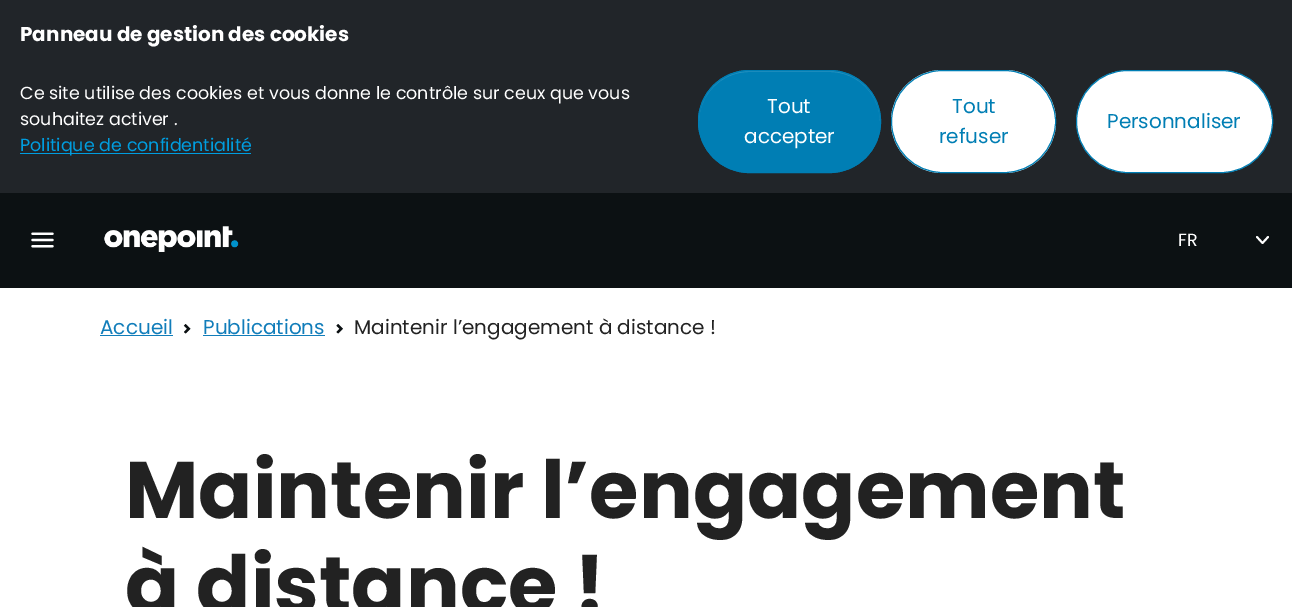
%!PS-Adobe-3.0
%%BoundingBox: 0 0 1292 607
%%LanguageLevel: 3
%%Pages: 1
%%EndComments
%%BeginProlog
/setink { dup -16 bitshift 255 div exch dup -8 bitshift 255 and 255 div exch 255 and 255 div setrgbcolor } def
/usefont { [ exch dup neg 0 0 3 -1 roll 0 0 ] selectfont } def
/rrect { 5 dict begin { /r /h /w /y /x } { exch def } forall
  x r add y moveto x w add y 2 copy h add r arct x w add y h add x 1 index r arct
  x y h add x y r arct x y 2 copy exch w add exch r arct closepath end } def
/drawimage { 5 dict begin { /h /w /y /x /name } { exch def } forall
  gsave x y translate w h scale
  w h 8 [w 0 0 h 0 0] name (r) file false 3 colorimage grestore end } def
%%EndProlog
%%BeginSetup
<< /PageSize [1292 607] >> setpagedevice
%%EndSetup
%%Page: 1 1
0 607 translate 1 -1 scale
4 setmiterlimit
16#FFFFFF setink
0 0 1292 607 rectfill
16#0C1113 setink
0 193 1292 95 rectfill
16#212529 setink
0 0 1292 193 rectfill
/Poppins-Bold 20 usefont
16#FFFFFF setink
20 41 moveto (Panneau de gestion des cookies) show
/Poppins-Regular 17.5 usefont
20 99 moveto (Ce site utilise des cookies et vous donne le contrôle sur ceux que vous) show
20 125 moveto (souhaitez activer .) show
16#009DDF setink
20 153 231 1 rectfill
20 151 moveto (Politique de confidentialité) show
16#007EB4 setink
698 70 183 103 51.5 rrect fill
16#2691BF setink
749 72 moveto 830 72 lineto 858 72 880 95 880 122 curveto 880 121 lineto 880 93 858 71 830 71 curveto 749 71 lineto 721 71 699 93 699 121 curveto 699 122 lineto 699 95 721 72 749 72 curveto closepath fill
16#007EB4 setink
698.5 70.5 182 102 51 rrect stroke
/Poppins-Regular 20 usefont
16#FFFFFF setink
767 113 moveto (Tout) show
744 143 moveto (accepter) show
891 70 165 103 51.5 rrect fill
942 72 moveto 1005 72 lineto 1033 72 1055 95 1055 122 curveto 1055 121 lineto 1055 93 1033 71 1005 71 curveto 943 71 lineto 925 71 910 80 901 94 curveto 910 81 925 72 942 72 curveto closepath fill
16#007EB4 setink
891.5 70.5 164 102 51 rrect stroke
952 113 moveto (Tout) show
939 143 moveto (refuser) show
16#FFFFFF setink
1076.5 70.5 196 102 51 rrect gsave fill grestore
16#007EB4 setink
stroke
1107 128 moveto (Personnaliser) show
(img1.raw) 31 232 23 16 drawimage
(img2.raw) 104 226 135 26 drawimage
16#FFFFFF setink
1.9 setlinewidth
1 setlinecap
1 setlinejoin
1257 237 moveto 1262.5 243 lineto 1268 237 lineto stroke
/Poppins-Regular 17.5 usefont
1178 246 moveto (FR) show
/Poppins-Regular 20 usefont
16#117DBA setink
100 334 moveto (Accueil) show
100 335 73 1 rectfill
(img3.raw) 183 324 8 10 drawimage
203 334 moveto (Publications) show
203 335 122 1 rectfill
(img4.raw) 336 324 7 10 drawimage
16#222222 setink
354 334 moveto (Maintenir l’engagement à distance !) show
/Poppins-Bold 80 usefont
125 518 moveto (Maintenir l’engagement) show
125 613 moveto (à distance !) show
showpage
%%EOF
